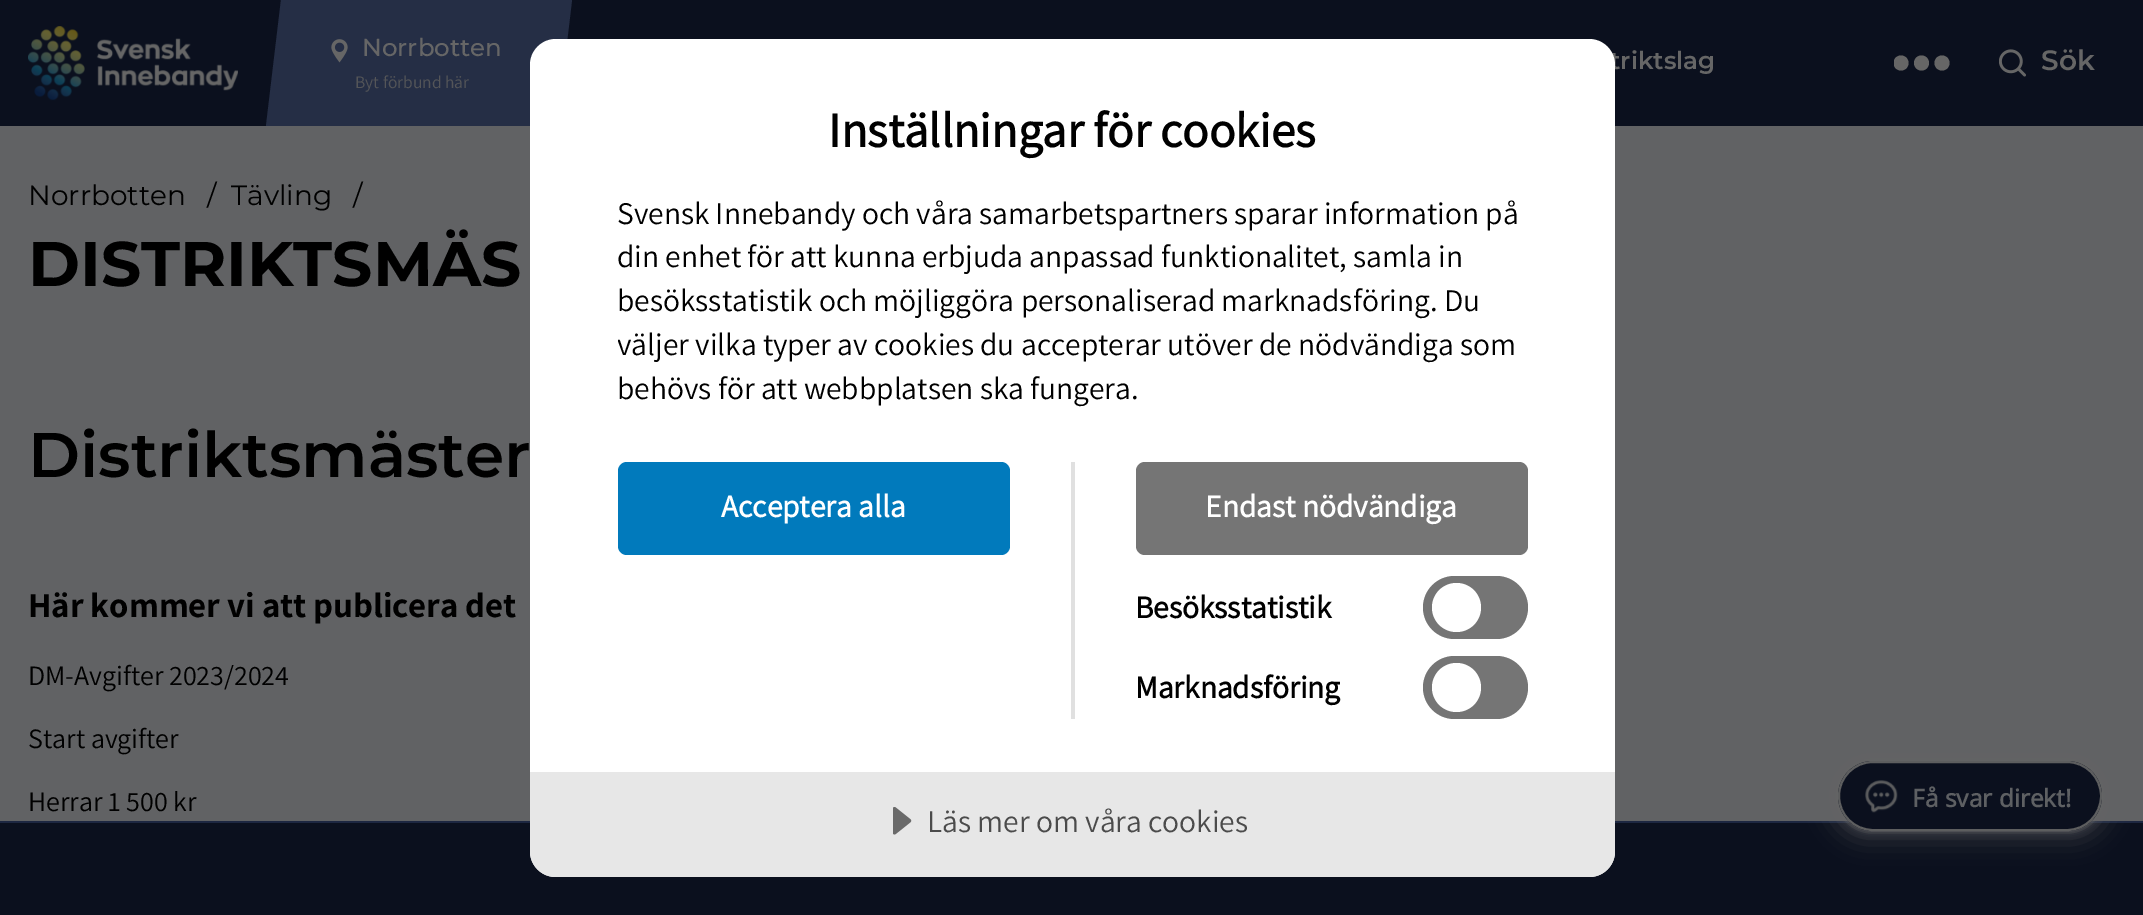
%!PS-Adobe-3.0
%%BoundingBox: 0 0 2143 915
%%LanguageLevel: 3
%%Pages: 1
%%EndComments
%%BeginProlog
/setink { dup -16 bitshift 255 div exch dup -8 bitshift 255 and 255 div exch 255 and 255 div setrgbcolor } def
/usefont { [ exch dup neg 0 0 3 -1 roll 0 0 ] selectfont } def
/setalpha { dup .setfillconstantalpha .setstrokeconstantalpha } def
/disc { newpath 0 360 arc closepath } def
/rrect { 5 dict begin { /r /h /w /y /x } { exch def } forall
  x r add y moveto x w add y 2 copy h add r arct x w add y h add x 1 index r arct
  x y h add x y r arct x y 2 copy exch w add exch r arct closepath end } def
/softshadow { 12 dict begin { /a /b /q /h /w /y /x } { exch def } forall gsave /was 0 def
  9 -2 -9 { dup b mul 4 div /e exch def 1 sub .425 mul 2.718 exch exp 1 add a .99 .min exch div /now exch def
    1 1 now sub 1 was sub div sub setalpha /was now def
    w h .min e 2 mul add 0 gt { x e sub y e sub w e 2 mul add h e 2 mul add
      q e add b .6 mul add w h .min 2 div e add .min 0 .max rrect fill } if } for grestore end } def
/drawimage { 5 dict begin { /h /w /y /x /name } { exch def } forall
  gsave x y translate w h scale
  w h 8 [w 0 0 h 0 0] name (r) file false 3 colorimage grestore end } def
%%EndProlog
%%BeginSetup
<< /PageSize [2143 915] /PageUsesTransparency true >> setpagedevice
%%EndSetup
%%Page: 1 1
0 .pushpdf14devicefilter
0 915 translate 1 -1 scale
4 setmiterlimit
16#616264 setink
0 0 2143 915 rectfill
16#0B101E setink
0 0 2143 126 rectfill
(img1.raw) 28 26 210 75 drawimage
16#252E45 setink
281 0 moveto 266 126 lineto 557 126 lineto 572 0 lineto closepath fill
(img2.raw) 331 39 17 24 drawimage
/Montserrat-Medium 24.5 usefont
16#666666 setink
362 56 moveto (Norrbotten) show
/Assistant-Regular 17.5 usefont
16#545558 setink
355 88 moveto (Byt förbund här) show
/Montserrat-SemiBold 24.5 usefont
16#666666 setink
1610 69 moveto (triktslag) show
gsave
1894 35 56 56 rectclip
1901 63 7.5 disc fill
grestore
1921.5 63 7.5 disc fill
1942 63 7.5 disc fill
(img3.raw) 1999 49 27 28 drawimage
/Montserrat-SemiBold 28 usefont
2041 70 moveto (Sök) show
/Montserrat-Regular 28 usefont
16#000000 setink
[
    [(Norrbotten) 28 205]
    [(/) 207 205]
    [(Tävling) 231 205]
    [(/) 353 205]
] { aload pop moveto show } forall
/Montserrat-Bold 63 usefont
28 286 moveto (DISTRIKTSMÄS) show
/Montserrat-SemiBold 63 usefont
28 477 moveto (Distriktsmäster) show
/Assistant-Bold 35 usefont
28 617 moveto (Här kommer vi att publicera det) show
/Assistant-Regular 28 usefont
[
    [(DM-Avgifter 2023/2024) 28 685]
    [(Start avgifter) 28 748]
    [(Herrar 1 500 kr) 28 811]
] { aload pop moveto show } forall
16#0B101E setink
0 823 2143 92 rectfill
16#1D2741 setink
0 821 2143 2 rectfill
16#FFFFFF setink
530 39 1085 838 26 rrect fill
/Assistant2-Bold 49 usefont
16#000000 setink
828 147 moveto (Inställningar för cookies) show
/Assistant-Regular 31.5 usefont
[
    [(Svensk Innebandy och våra samarbetspartners sparar information på) 617 224]
    [(din enhet för att kunna erbjuda anpassad funktionalitet, samla in) 617 267]
    [(besöksstatistik och möjliggöra personaliserad marknadsföring. Du) 617 311]
] { aload pop moveto show } forall
gsave
618 159 910 251 rectclip
617 355 moveto (väljer vilka typer av cookies du accepterar utöver de nödvändiga som) show
grestore
617 399 moveto (behövs för att webbplatsen ska fungera.) show
16#E0E0E0 setink
1071 462 4 257 rectfill
16#017ABC setink
618 462 392 93 9 rrect fill
/Assistant2-Bold 31.5 usefont
16#FFFFFF setink
721 517 moveto (Acceptera alla) show
16#757575 setink
1136 462 392 93 9 rrect fill
16#FFFFFF setink
1205 517 moveto (Endast nödvändiga) show
16#000000 setink
1135 618 moveto (Besöksstatistik) show
16#757575 setink
1423 576 105 63 31.5 rrect fill
16#FFFFFF setink
1456.5 607.5 24.5 disc fill
16#000000 setink
1135 698 moveto (Marknadsföring) show
16#757575 setink
1423 656 105 63 31.5 rrect fill
16#FFFFFF setink
1456.5 687.5 24.5 disc fill
16#E7E7E7 setink
530 772 moveto 1615 772 lineto 1615 851 lineto 1615 865.5 1603.5 877 1589 877 curveto 556 877 lineto 541.5 877 530 865.5 530 851 curveto closepath fill
(img4.raw) 893 807 19 28 drawimage
/Assistant-Regular 31.5 usefont
16#4B4B4B setink
927 832 moveto (Läs mer om våra cookies) show
16#666666 setink
1838 761 264 70 35 3.5 1 softshadow
1832 756 275 81 40.5 13 0.5 softshadow
16#0B101E setink
1838 761 264 70 35 rrect fill
0.9 setalpha
16#666666 setink
2 setlinewidth
1839 762 262 68 34 rrect stroke
1 setalpha
(img5.raw) 1865 780 33 33 drawimage
/OpenSans-Bold 24.5 usefont
16#5E6063 setink
1912 807 moveto (Få svar direkt!) show
.poppdf14devicefilter showpage
%%EOF
